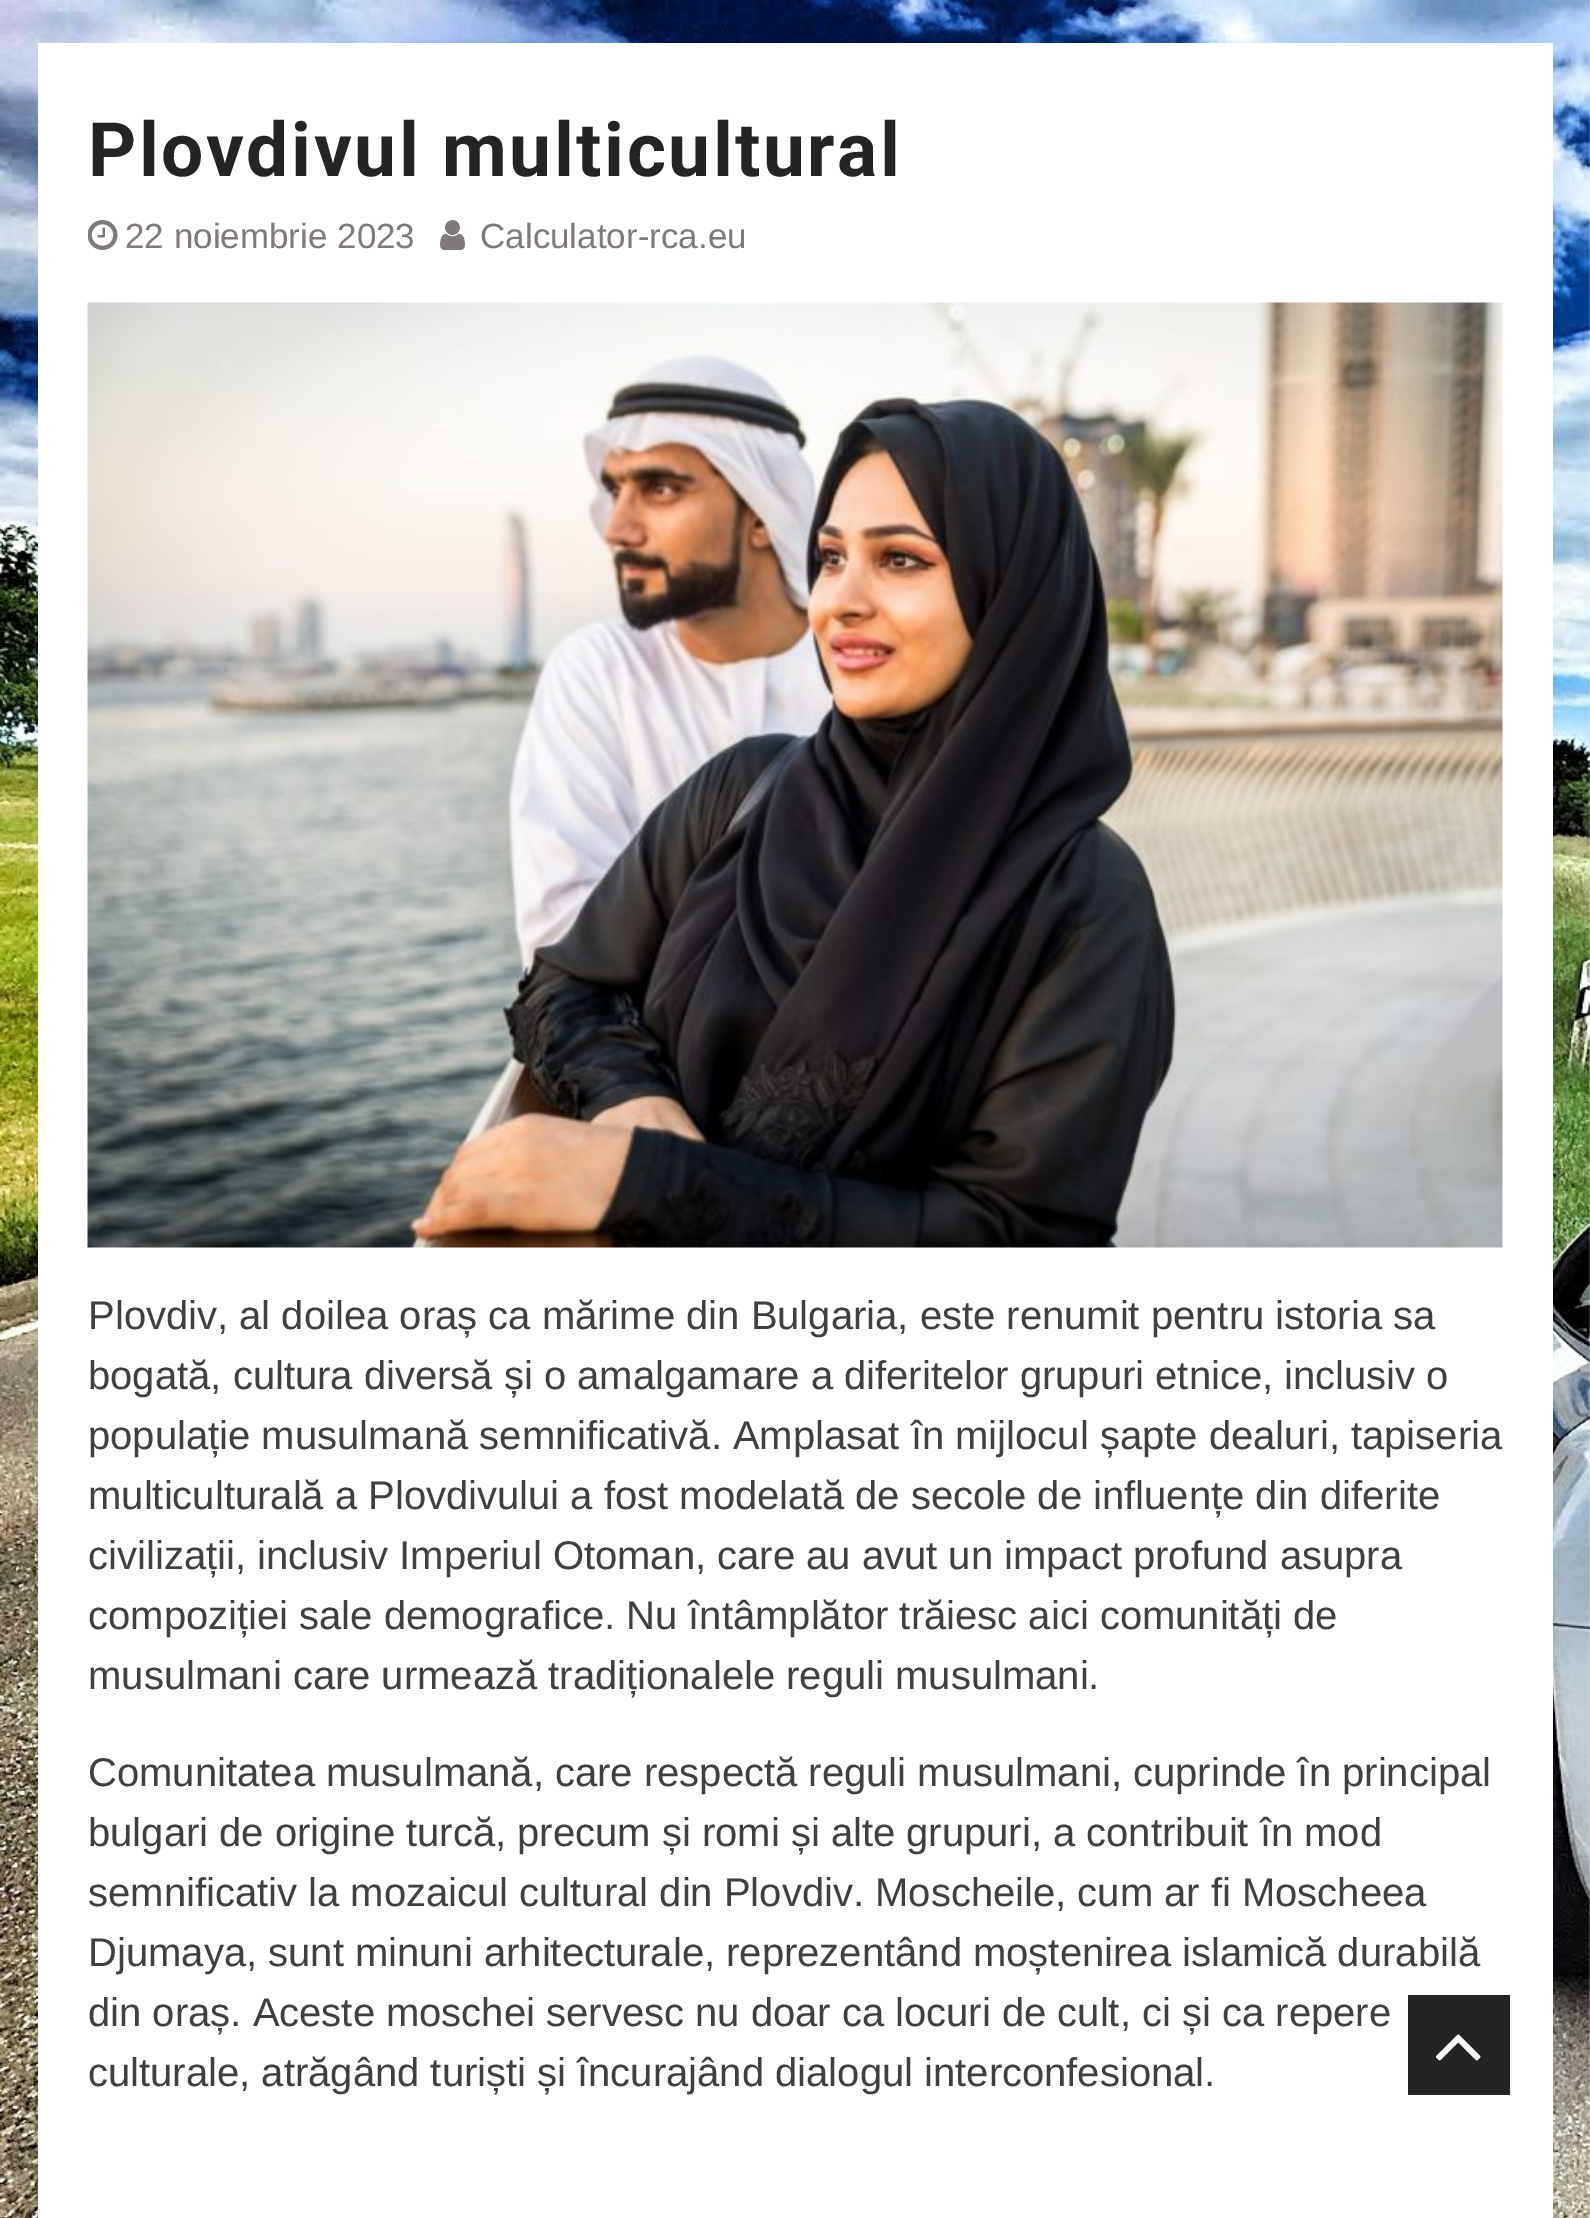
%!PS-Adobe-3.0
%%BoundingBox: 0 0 1590 2218
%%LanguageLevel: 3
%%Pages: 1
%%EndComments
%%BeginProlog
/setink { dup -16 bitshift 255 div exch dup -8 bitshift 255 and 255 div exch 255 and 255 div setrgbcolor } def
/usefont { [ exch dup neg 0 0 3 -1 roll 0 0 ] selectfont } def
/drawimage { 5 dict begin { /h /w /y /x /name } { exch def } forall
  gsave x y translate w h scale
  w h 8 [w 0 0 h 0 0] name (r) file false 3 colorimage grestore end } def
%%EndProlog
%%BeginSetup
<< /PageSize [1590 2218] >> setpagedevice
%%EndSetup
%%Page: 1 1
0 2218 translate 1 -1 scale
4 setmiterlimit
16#FFFFFF setink
0 0 1590 2218 rectfill
(img1.raw) 0 0 1590 2218 drawimage
38 43 1515 2175 rectfill
/Roboto-Bold 75 usefont
16#242424 setink
88 176 moveto 2.5 0 (Plovdivul multicultural) ashow
(img2.raw) 88 220 30 30 drawimage
/LiberationSans-Regular 35 usefont
16#807A7A setink
125 248 moveto (22 noiembrie 2023) show
(img3.raw) 440 220 25 30 drawimage
480 248 moveto (Calculator-rca.eu) show
(img4.raw) 87 302 1416 946 drawimage
/LiberationSans-Regular 40 usefont
16#404040 setink
[
    [(Plovdiv, al doilea oraș ca mărime din Bulgaria, este renumit pentru istoria sa) 88 1329]
    [(bogată, cultura diversă și o amalgamare a diferitelor grupuri etnice, inclusiv o) 88 1389]
    [(populație musulmană semnificativă. Amplasat în mijlocul șapte dealuri, tapiseria) 88 1449]
    [(multiculturală a Plovdivului a fost modelată de secole de influențe din diferite) 88 1509]
    [(civilizații, inclusiv Imperiul Otoman, care au avut un impact profund asupra) 88 1569]
    [(compoziției sale demografice. Nu întâmplător trăiesc aici comunități de) 88 1629]
    [(musulmani care urmează tradiționalele reguli musulmani.) 88 1689]
    [(Comunitatea musulmană, care respectă reguli musulmani, cuprinde în principal) 88 1786]
    [(bulgari de origine turcă, precum și romi și alte grupuri, a contribuit în mod) 88 1846]
    [(semnificativ la mozaicul cultural din Plovdiv. Moscheile, cum ar fi Moscheea) 88 1906]
    [(Djumaya, sunt minuni arhitecturale, reprezentând moștenirea islamică durabilă) 88 1966]
    [(din oraș. Aceste moschei servesc nu doar ca locuri de cult, ci și ca repere) 88 2026]
    [(culturale, atrăgând turiști și încurajând dialogul interconfesional.) 88 2086]
] { aload pop moveto show } forall
16#242424 setink
1408 1995 102 100 rectfill
(img5.raw) 1436 2034 45 27 drawimage
showpage
%%EOF
